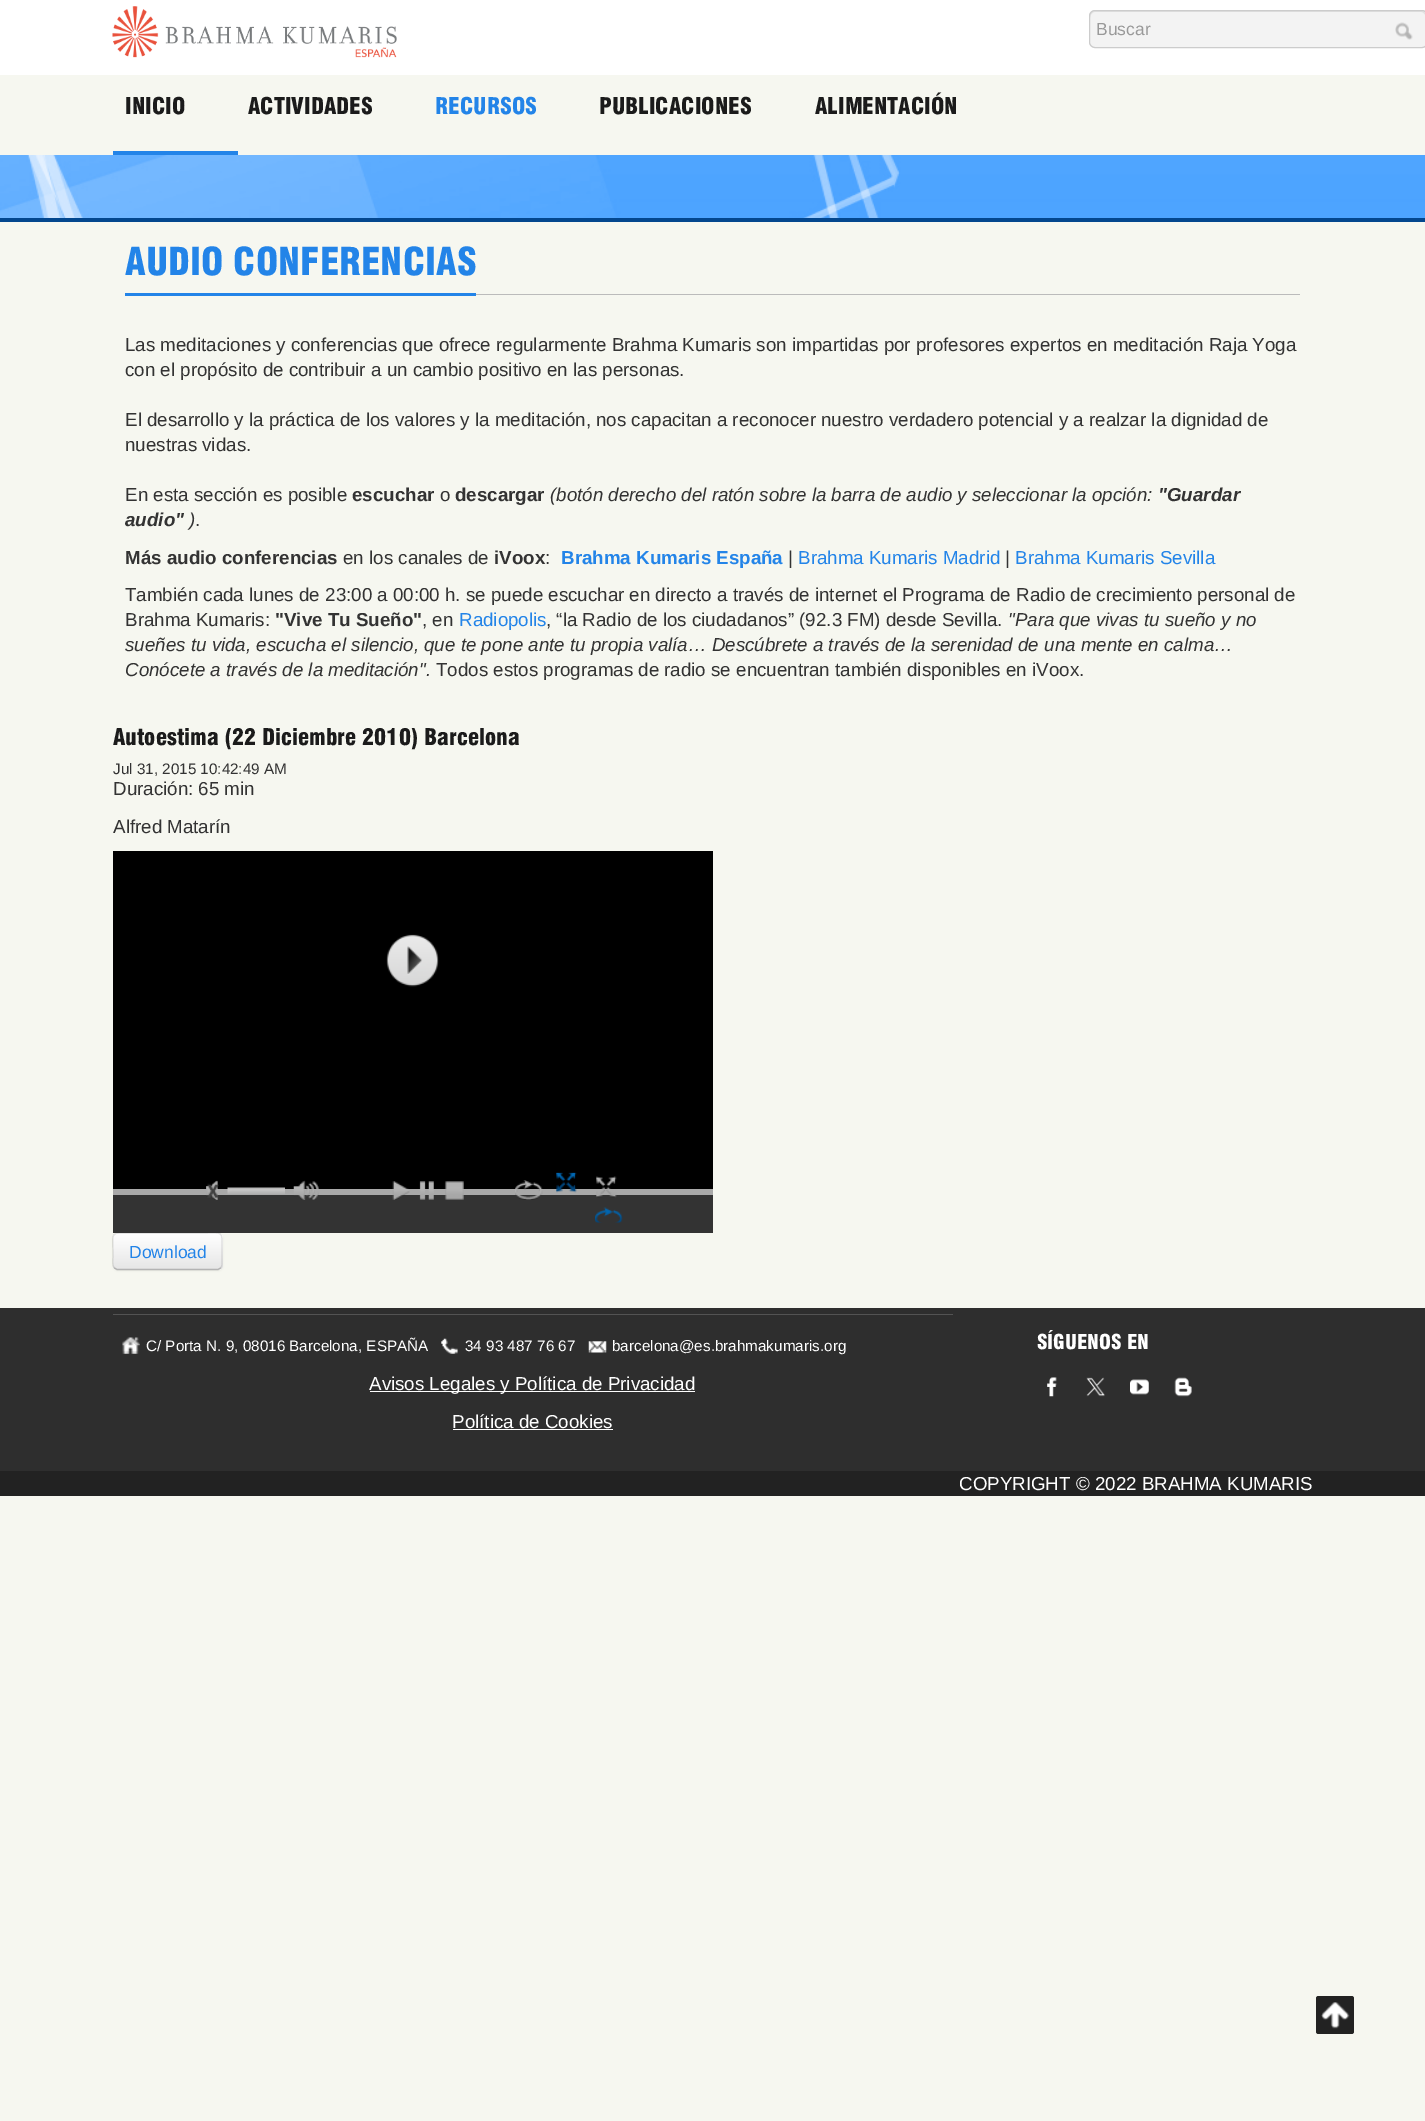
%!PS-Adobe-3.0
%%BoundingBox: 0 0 1425 2121
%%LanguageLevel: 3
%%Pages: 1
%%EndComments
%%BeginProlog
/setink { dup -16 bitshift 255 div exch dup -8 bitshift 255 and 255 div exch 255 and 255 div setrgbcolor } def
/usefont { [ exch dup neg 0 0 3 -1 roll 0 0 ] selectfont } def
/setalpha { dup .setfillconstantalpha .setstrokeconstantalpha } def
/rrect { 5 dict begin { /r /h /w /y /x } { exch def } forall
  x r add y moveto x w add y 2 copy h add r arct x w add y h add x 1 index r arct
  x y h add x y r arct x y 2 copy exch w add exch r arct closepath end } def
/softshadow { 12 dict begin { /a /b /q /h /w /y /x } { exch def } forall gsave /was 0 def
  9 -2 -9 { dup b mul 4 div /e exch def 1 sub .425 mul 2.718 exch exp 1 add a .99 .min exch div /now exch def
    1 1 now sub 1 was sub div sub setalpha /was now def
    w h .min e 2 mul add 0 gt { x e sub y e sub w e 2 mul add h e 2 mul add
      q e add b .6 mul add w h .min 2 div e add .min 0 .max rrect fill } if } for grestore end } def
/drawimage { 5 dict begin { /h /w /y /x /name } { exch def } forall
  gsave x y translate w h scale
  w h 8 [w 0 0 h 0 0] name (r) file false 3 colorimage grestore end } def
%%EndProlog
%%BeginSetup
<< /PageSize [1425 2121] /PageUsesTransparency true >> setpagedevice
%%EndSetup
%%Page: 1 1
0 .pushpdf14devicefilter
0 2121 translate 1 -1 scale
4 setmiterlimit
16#F6F7F0 setink
0 0 1425 2121 rectfill
16#FFFFFF setink
0 0 1425 75 rectfill
16#F3F3F3 setink
1089 10 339 38 6 rrect fill
16#E1E1E1 setink
1095 12 moveto 1421 12 lineto 1424 12 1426 15 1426 18 curveto 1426 16 lineto 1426 13 1424 11 1421 11 curveto 1095 11 lineto 1092 11 1090 13 1090 16 curveto 1090 18 lineto 1090 15 1092 12 1095 12 curveto closepath fill
16#CCCCCC setink
1089.5 10.5 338 37 5.5 rrect stroke
/LiberationSans-Regular 17.5 usefont
16#999999 setink
1096 35 moveto (Buscar) show
(img1.raw) 1395 22 18 18 drawimage
(img2.raw) 112 6 285 52 drawimage
/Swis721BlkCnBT-Black 22.5 usefont
16#1B1B1B setink
125 114 moveto (INICIO) show
248 114 moveto (ACTIVIDADES) show
16#2384E8 setink
435 114 moveto (RECURSOS) show
16#1B1B1B setink
599 114 moveto (PUBLICACIONES) show
815 114 moveto (ALIMENTACIÓN) show
16#2384E8 setink
113 151 125 4 rectfill
(img3.raw) 0 155 1425 63 drawimage
[
    [0 218 1425 4 16#03478E]
    [476 294 824 1 16#BBBBBB]
    [125 293 351 3 16#2384E8]
] { aload pop setink rectfill } forall
/Swis721BlkCnBT-Black 37.5 usefont
125 275 moveto (AUDIO CONFERENCIAS) show
/LiberationSans-Regular 18.75 usefont
16#333333 setink
[
    [(Las meditaciones y conferencias que ofrece regularmente Brahma Kumaris son impartidas por profesores expertos en meditación Raja Yoga) 125 351]
    [(con el propósito de contribuir a un cambio positivo en las personas.) 125 376]
    [(El desarrollo y la práctica de los valores y la meditación, nos capacitan a reconocer nuestro verdadero potencial y a realzar la dignidad de) 125 426]
    [(nuestras vidas.) 125 451]
    [(En esta sección es posible) 125 501]
] { aload pop moveto show } forall
/LiberationSans-Bold 18.75 usefont
352 501 moveto (escuchar) show
/LiberationSans-Regular 18.75 usefont
440 501 moveto (o) show
/LiberationSans-Bold 18.75 usefont
455 501 moveto (descargar) show
/LiberationSans-Italic 18.75 usefont
550 501 moveto (\(botón derecho del ratón sobre la barra de audio y seleccionar la opción:) show
/LiberationSans-BoldItalic 18.75 usefont
1158 501 moveto ("Guardar) show
125 526 moveto (audio") show
/LiberationSans-Italic 18.75 usefont
189 526 moveto (\)) show
/LiberationSans-Regular 18.75 usefont
195 526 moveto (.) show
/LiberationSans-Bold 18.75 usefont
125 564 moveto (Más audio conferencias) show
/LiberationSans-Regular 18.75 usefont
343 564 moveto (en los canales de) show
/LiberationSans-Bold 18.75 usefont
494 564 moveto (iVoox) show
/LiberationSans-Regular 18.75 usefont
545 564 moveto (:) show
/LiberationSans-Bold 18.75 usefont
16#2384E8 setink
561 564 moveto (Brahma Kumaris España) show
/LiberationSans-Regular 18.75 usefont
16#333333 setink
788 564 moveto (|) show
16#2384E8 setink
798 564 moveto (Brahma Kumaris Madrid) show
16#333333 setink
1005 564 moveto (|) show
16#2384E8 setink
1015 564 moveto (Brahma Kumaris Sevilla) show
16#333333 setink
125 601 moveto (También cada lunes de 23:00 a 00:00 h. se puede escuchar en directo a través de internet el Programa de Radio de crecimiento personal de) show
125 626 moveto (Brahma Kumaris:) show
/LiberationSans-Bold 18.75 usefont
275 626 moveto ("Vive Tu Sueño") show
/LiberationSans-Regular 18.75 usefont
422 626 moveto (, en) show
16#2384E8 setink
459 626 moveto (Radiopolis) show
16#333333 setink
546 626 moveto (, “la Radio de los ciudadanos” \(92.3 FM\) desde Sevilla.) show
/LiberationSans-Italic 18.75 usefont
[
    [("Para que vivas tu sueño y no) 1008 626]
    [(sueñes tu vida, escucha el silencio, que te pone ante tu propia valía… Descúbrete a través de la serenidad de una mente en calma…) 125 651]
    [(Conócete a través de la meditación".) 125 676]
] { aload pop moveto show } forall
/LiberationSans-Regular 18.75 usefont
436 676 moveto (Todos estos programas de radio se encuentran también disponibles en iVoox.) show
/Swis721BlkCnBT-Black 22.5 usefont
16#1B1B1B setink
113 745 moveto (Autoestima \(22 Diciembre 2010\) Barcelona) show
/LiberationSans-Regular 15.25 usefont
16#333333 setink
113 774 moveto (Jul 31, 2015 10:42:49 AM) show
/LiberationSans-Regular 18.75 usefont
113 795 moveto (Duración: 65 min) show
113 833 moveto (Alfred Matarín) show
16#000000 setink
113 851 600 338 rectfill
(img4.raw) 386 934 53 53 drawimage
113 1234 110 37 5 1 0.05 softshadow
16#F5F5F5 setink
113 1233 110 37 5 rrect fill
gsave
113 1233 110 37 5 rrect clip newpath
gsave 113 1234 moveto 223 1234 lineto 223 1269 lineto 113 1269 lineto closepath clip newpath
<< /ShadingType 2 /ColorSpace /DeviceRGB /Coords [168 1234 168 1269] /Extend [true true] /Function << /FunctionType 2 /Domain [0 1] /C0 [1 1 1] /C1 [0.902 0.902 0.902] /N 1 >> >> shfill grestore
grestore
16#B3B3B3 setink
1.2 setlinewidth
220.5 1268 moveto 218 1269.5 lineto 117 1269.5 lineto 114.5 1268 lineto stroke
0.1 setalpha
16#000000 setink
114.5 1268 moveto 111.5 1265.5 113 1259 113 1256 curveto 113 1230 108.5 1233 134 1233 curveto 201 1233 lineto 224.5 1233 222 1229.5 222 1251 curveto 222 1260.5 lineto 222 1263 222.5 1266 220.5 1268 curveto stroke
1 setalpha
16#333333 setink
113 1195 600 38 rectfill
16#A9A9A9 setink
113 1189 600 6 rectfill
(img5.raw) 206 1180 12 20 drawimage
(img6.raw) 206 1180 13 20 drawimage
(img7.raw) 293 1180 26 20 drawimage
(img8.raw) 392 1181 18 19 drawimage
(img9.raw) 419 1181 15 19 drawimage
(img10.raw) 444 1181 20 19 drawimage
(img11.raw) 515 1180 28 20 drawimage
(img12.raw) 556 1172 21 21 drawimage
(img13.raw) 596 1176 21 22 drawimage
(img14.raw) 595 1207 28 16 drawimage
(img15.raw) 227 1187 58 7 drawimage
/LiberationSans-Regular 17.5 usefont
16#2384E8 setink
129 1258 moveto (Download) show
16#2E2E2E setink
0 1308 1425 163 rectfill
16#535353 setink
113 1314 840 1 rectfill
(img16.raw) 122 1337 18 17 drawimage
/LiberationSans-Regular 15.25 usefont
16#FFFFFF setink
146 1351 moveto (C/ Porta N. 9, 08016 Barcelona, ESPAÑA) show
(img17.raw) 441 1338 17 16 drawimage
465 1351 moveto (34 93 487 76 67) show
(img18.raw) 588 1341 19 12 drawimage
612 1351 moveto (barcelona@es.brahmakumaris.org) show
370 1391 325 1 rectfill
/LiberationSans-Regular 18.75 usefont
369 1390 moveto (Avisos Legales y Política de Privacidad) show
452 1428 moveto (Política de Cookies) show
453 1429 160 1 rectfill
/Swis721BlkCnBT-Black 20 usefont
1037 1349 moveto (SÍGUENOS EN) show
(img19.raw) 1047 1377 10 20 drawimage
(img20.raw) 1086 1377 19 20 drawimage
(img21.raw) 1130 1379 19 16 drawimage
(img22.raw) 1174 1377 18 20 drawimage
16#222222 setink
0 1471 1425 25 rectfill
/LiberationSans-Regular 18.75 usefont
16#FFFFFF setink
959 1490 moveto (COPYRIGHT © 2022 BRAHMA KUMARIS) show
16#222222 setink
1316 1996 38 38 2.5 rrect fill
(img23.raw) 1321 2002 29 27 drawimage
.poppdf14devicefilter showpage
%%EOF
